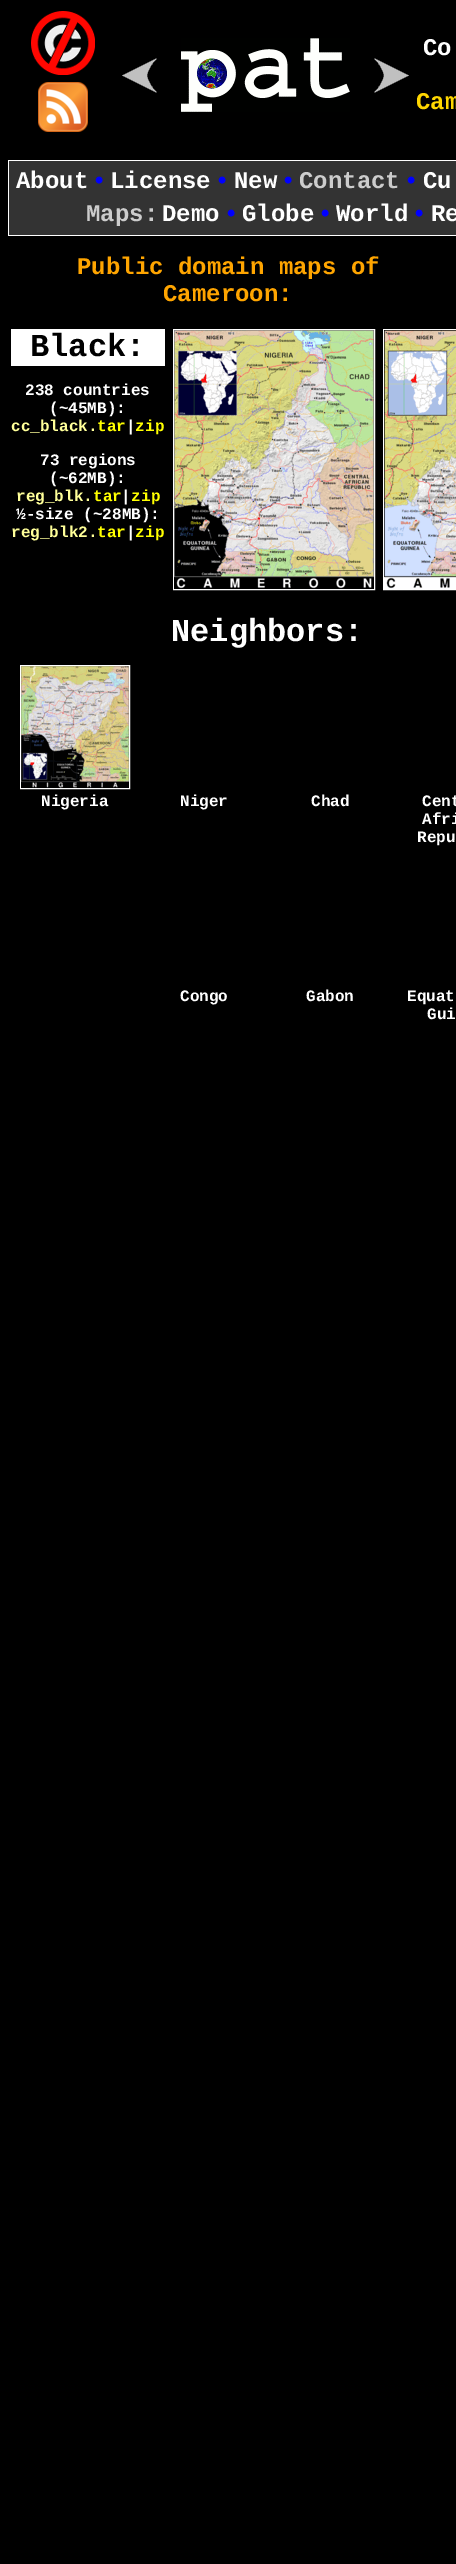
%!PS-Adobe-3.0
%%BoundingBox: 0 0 456 2564
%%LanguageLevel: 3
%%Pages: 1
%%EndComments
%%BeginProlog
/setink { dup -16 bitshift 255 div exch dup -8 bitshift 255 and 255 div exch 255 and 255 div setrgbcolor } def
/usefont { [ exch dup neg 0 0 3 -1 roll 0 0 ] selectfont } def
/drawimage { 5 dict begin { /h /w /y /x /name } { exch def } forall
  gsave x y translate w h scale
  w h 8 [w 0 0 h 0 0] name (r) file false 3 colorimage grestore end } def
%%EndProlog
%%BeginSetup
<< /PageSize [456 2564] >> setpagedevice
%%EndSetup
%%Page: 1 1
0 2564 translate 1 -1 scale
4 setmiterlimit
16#000000 setink
0 0 456 2564 rectfill
(img1.raw) 31 11 64 64 drawimage
(img2.raw) 38 82 50 50 drawimage
(img3.raw) 122 58 35 35 drawimage
(img4.raw) 181 38 169 74 drawimage
(img5.raw) 374 58 35 35 drawimage
/LiberationMono-Bold 24 usefont
16#FFFFFF setink
423 55 moveto (Co) show
16#FFD700 setink
416 109 moveto (Cam) show
16#FFFFFF setink
8 160 448 76 rectfill
16#333333 setink
9 161 447 74 rectfill
16#FFFFFF setink
16 188 moveto (About) show
16#0000FF setink
92 188 moveto (•) show
16#FFFFFF setink
110 188 moveto (License) show
16#0000FF setink
215 188 moveto (•) show
16#FFFFFF setink
234 188 moveto (New) show
16#0000FF setink
281 188 moveto (•) show
16#CCCCCC setink
299 188 moveto (Contact) show
16#0000FF setink
404 188 moveto (•) show
16#FFFFFF setink
423 188 moveto (Cu) show
16#CCCCCC setink
86 221 moveto (Maps:) show
16#FFFFFF setink
162 221 moveto (Demo) show
16#0000FF setink
224 221 moveto (•) show
16#FFFFFF setink
242 221 moveto (Globe) show
16#0000FF setink
318 221 moveto (•) show
16#FFFFFF setink
336 221 moveto (World) show
16#0000FF setink
412 221 moveto (•) show
16#FFFFFF setink
431 221 moveto (Re) show
16#FFA500 setink
77 274 moveto (Public domain maps of) show
163 301 moveto (Cameroon:) show
16#FFFFFF setink
11 329 154 37 rectfill
/LiberationMono-Bold 32 usefont
16#000000 setink
30 356 moveto (Black:) show
/LiberationMono-Bold 16 usefont
16#FFFFFF setink
25 395 moveto (238 countries) show
49 413 moveto (\(~45MB\):) show
16#FFFF99 setink
11 431 moveto (cc_black.) show
16#FFFF00 setink
97 431 moveto (tar zip) show
16#FFFFFF setink
[
    [(|) 126 431]
    [(73 regions) 40 465]
    [(\(~62MB\):) 49 483]
] { aload pop moveto show } forall
16#FFFF99 setink
16 501 moveto (reg_blk.) show
16#FFFF00 setink
93 501 moveto (tar zip) show
16#FFFFFF setink
121 501 moveto (|) show
16 519 moveto (½-size \(~28MB\):) show
16#FFFF99 setink
11 537 moveto (reg_blk2.) show
16#FFFF00 setink
97 537 moveto (tar zip) show
16#FFFFFF setink
126 537 moveto (|) show
173.5 329.5 201 260 rectstroke
(img6.raw) 174 330 200 259 drawimage
383.5 329.5 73 260 rectstroke
(img7.raw) 384 330 72 259 drawimage
/LiberationMono-Bold 32 usefont
171 641 moveto (Neighbors:) show
20.5 665.5 109 123 rectstroke
(img8.raw) 21 666 108 122 drawimage
/LiberationMono-Bold 16 usefont
[
    [(Nigeria) 41 806]
    [(Niger) 180 806]
    [(Chad) 311 806]
    [(Cent) 422 806]
    [(Afri) 422 824]
    [(Repu) 417 842]
    [(Congo) 180 1001]
    [(Gabon) 306 1001]
    [(Equat) 407 1001]
    [(Gui) 427 1019]
] { aload pop moveto show } forall
showpage
%%EOF
